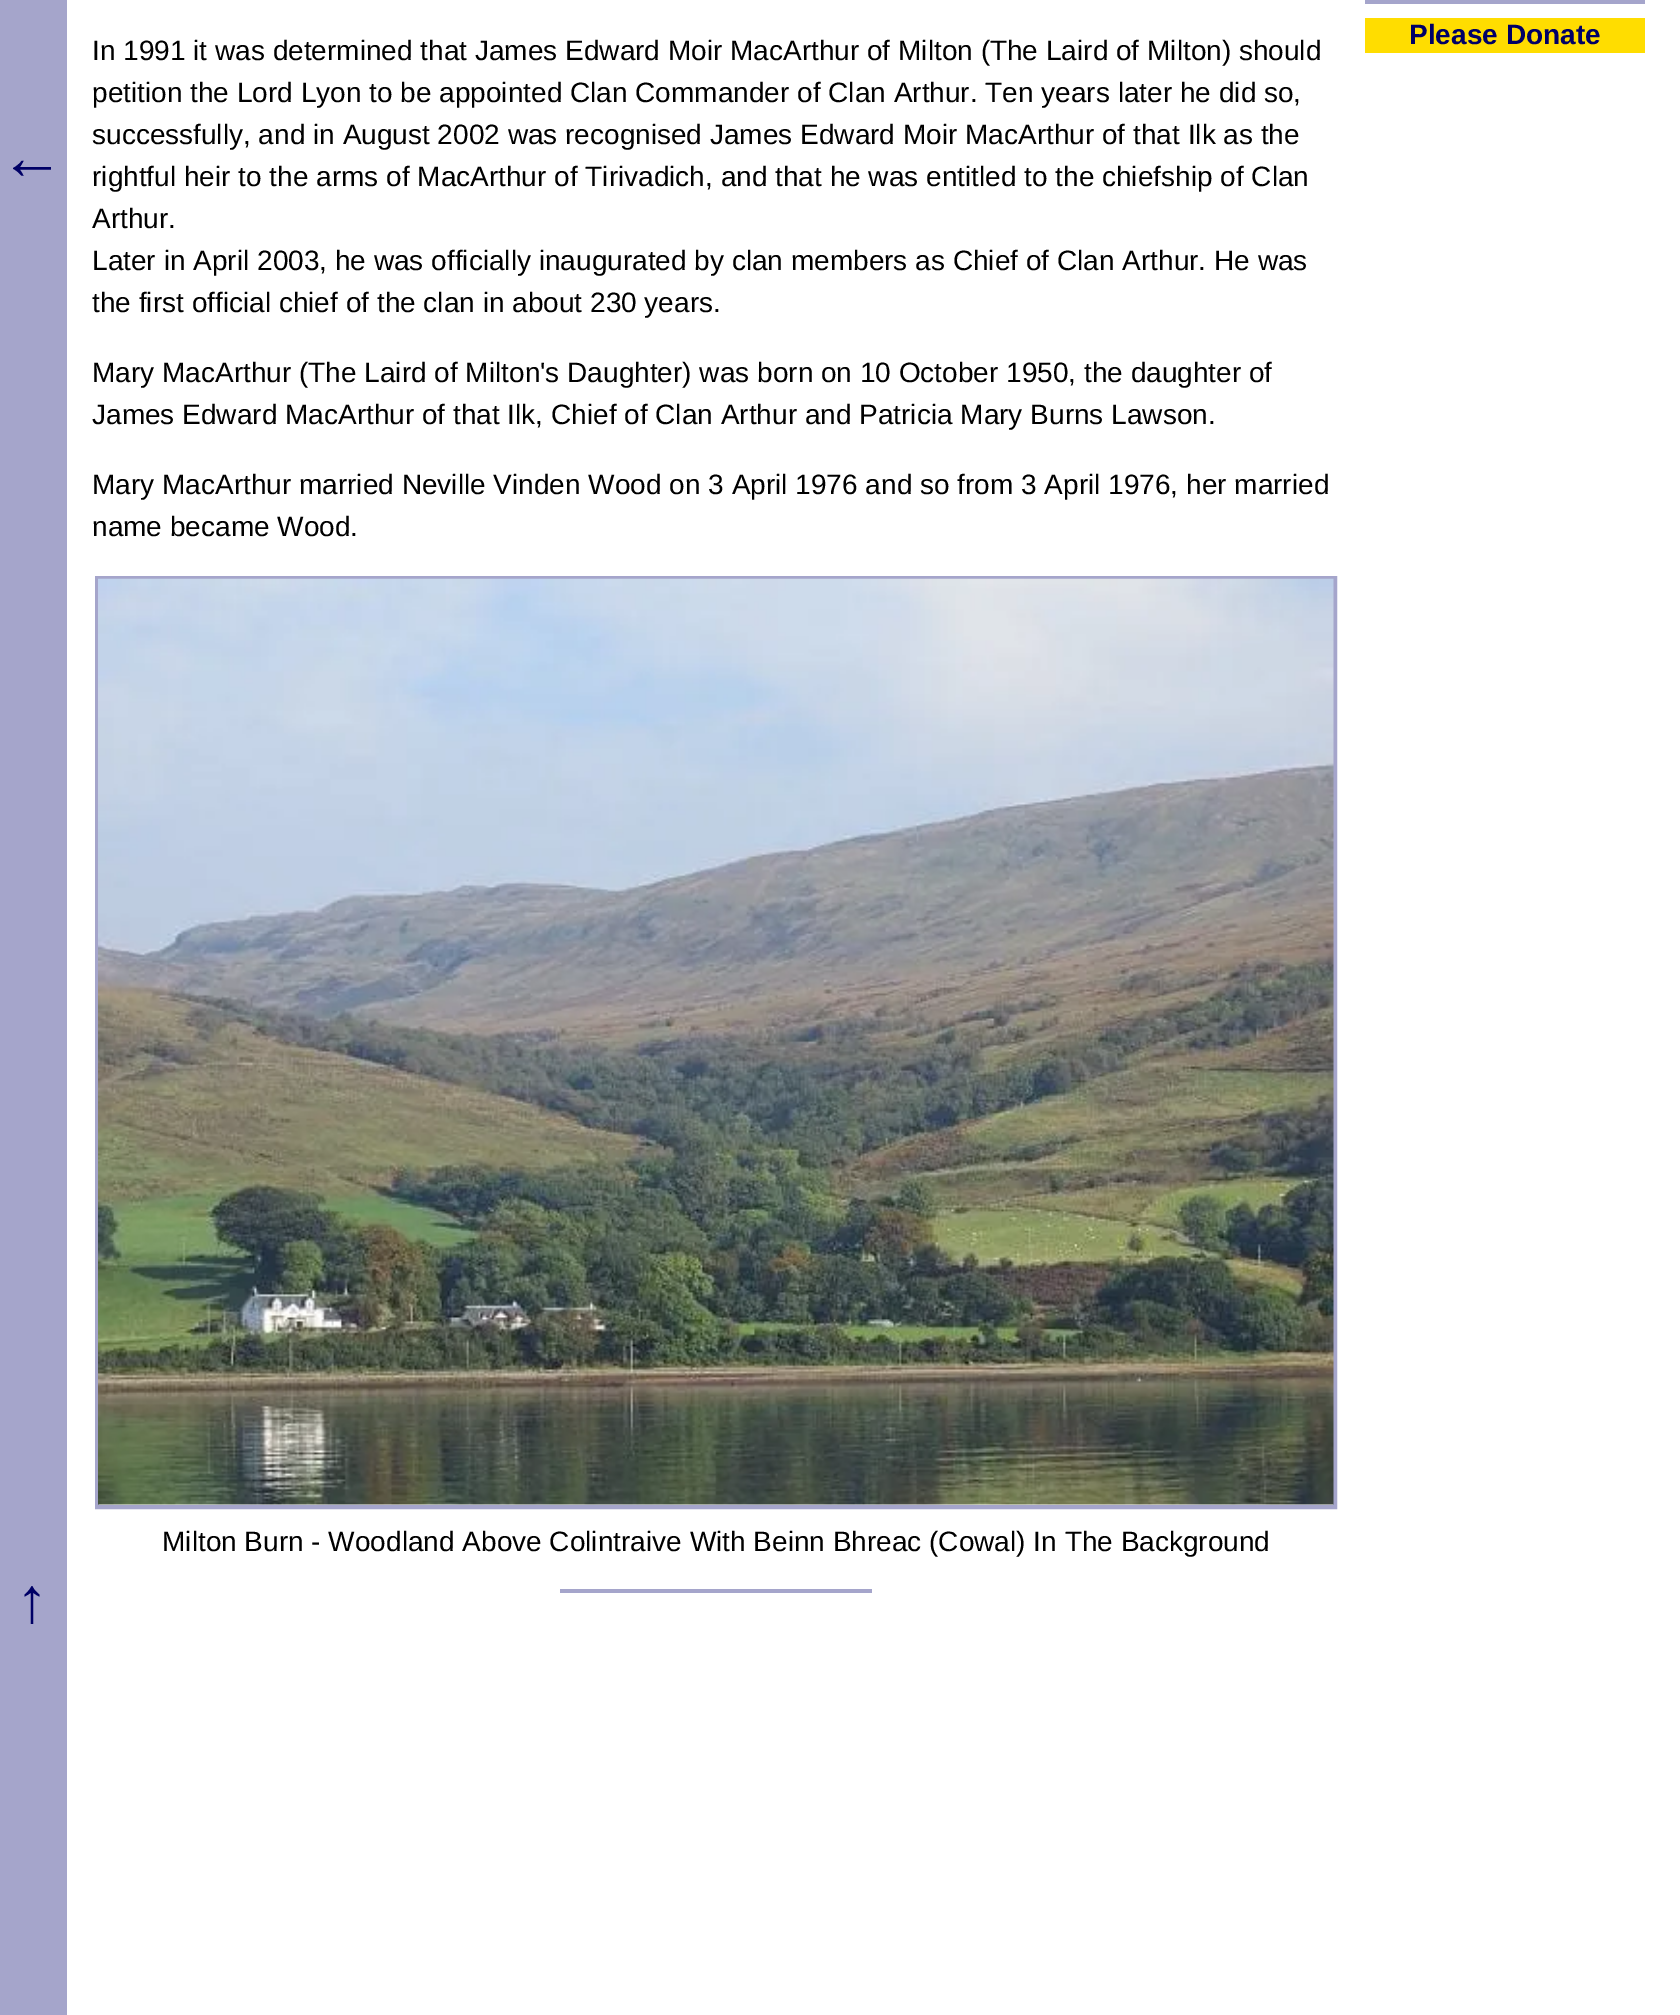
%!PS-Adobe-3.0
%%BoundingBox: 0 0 1680 2015
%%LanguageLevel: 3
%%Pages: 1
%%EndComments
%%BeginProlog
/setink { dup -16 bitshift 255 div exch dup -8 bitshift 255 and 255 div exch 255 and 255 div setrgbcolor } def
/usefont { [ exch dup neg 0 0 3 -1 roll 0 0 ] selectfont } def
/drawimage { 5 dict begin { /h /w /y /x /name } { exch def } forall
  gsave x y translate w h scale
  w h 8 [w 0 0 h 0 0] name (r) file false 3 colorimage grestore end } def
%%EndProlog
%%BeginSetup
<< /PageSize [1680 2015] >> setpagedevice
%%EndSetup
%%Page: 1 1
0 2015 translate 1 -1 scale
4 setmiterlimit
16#FFFFFF setink
0 0 1680 2015 rectfill
[
    [0 0 67 2015 16#A5A5CB]
    [1365 0 280 4 16#A5A5CB]
    [1365 18 280 35 16#FFDD00]
] { aload pop setink rectfill } forall
/LiberationSans-Bold 28 usefont
16#000066 setink
1409 44 moveto (Please Donate) show
/LiberationSans-Regular 28 usefont
16#000000 setink
[
    [(In 1991 it was determined that James Edward Moir MacArthur of Milton \(The Laird of Milton\) should) 92 60]
    [(petition the Lord Lyon to be appointed Clan Commander of Clan Arthur. Ten years later he did so,) 92 102]
    [(successfully, and in August 2002 was recognised James Edward Moir MacArthur of that Ilk as the) 92 144]
    [(rightful heir to the arms of MacArthur of Tirivadich, and that he was entitled to the chiefship of Clan) 92 186]
    [(Arthur.) 92 228]
    [(Later in April 2003, he was officially inaugurated by clan members as Chief of Clan Arthur. He was) 92 270]
    [(the first official chief of the clan in about 230 years.) 92 312]
    [(Mary MacArthur \(The Laird of Milton's Daughter\) was born on 10 October 1950, the daughter of) 92 382]
    [(James Edward MacArthur of that Ilk, Chief of Clan Arthur and Patricia Mary Burns Lawson.) 92 424]
    [(Mary MacArthur married Neville Vinden Wood on 3 April 1976 and so from 3 April 1976, her married) 92 494]
    [(name became Wood.) 92 536]
] { aload pop moveto show } forall
16#A5A5CB setink
4 setlinewidth
97 578 1238 929 rectstroke
(img1.raw) 98 578 1236 927 drawimage
16#000000 setink
162 1551 moveto (Milton Burn - Woodland Above Colintraive With Beinn Bhreac \(Cowal\) In The Background) show
16#A5A5CB setink
560 1589 312 4 rectfill
/LiberationSans-Regular 64 usefont
16#000066 setink
0 179 moveto (←) show
16 1622 moveto (↑) show
showpage
%%EOF
